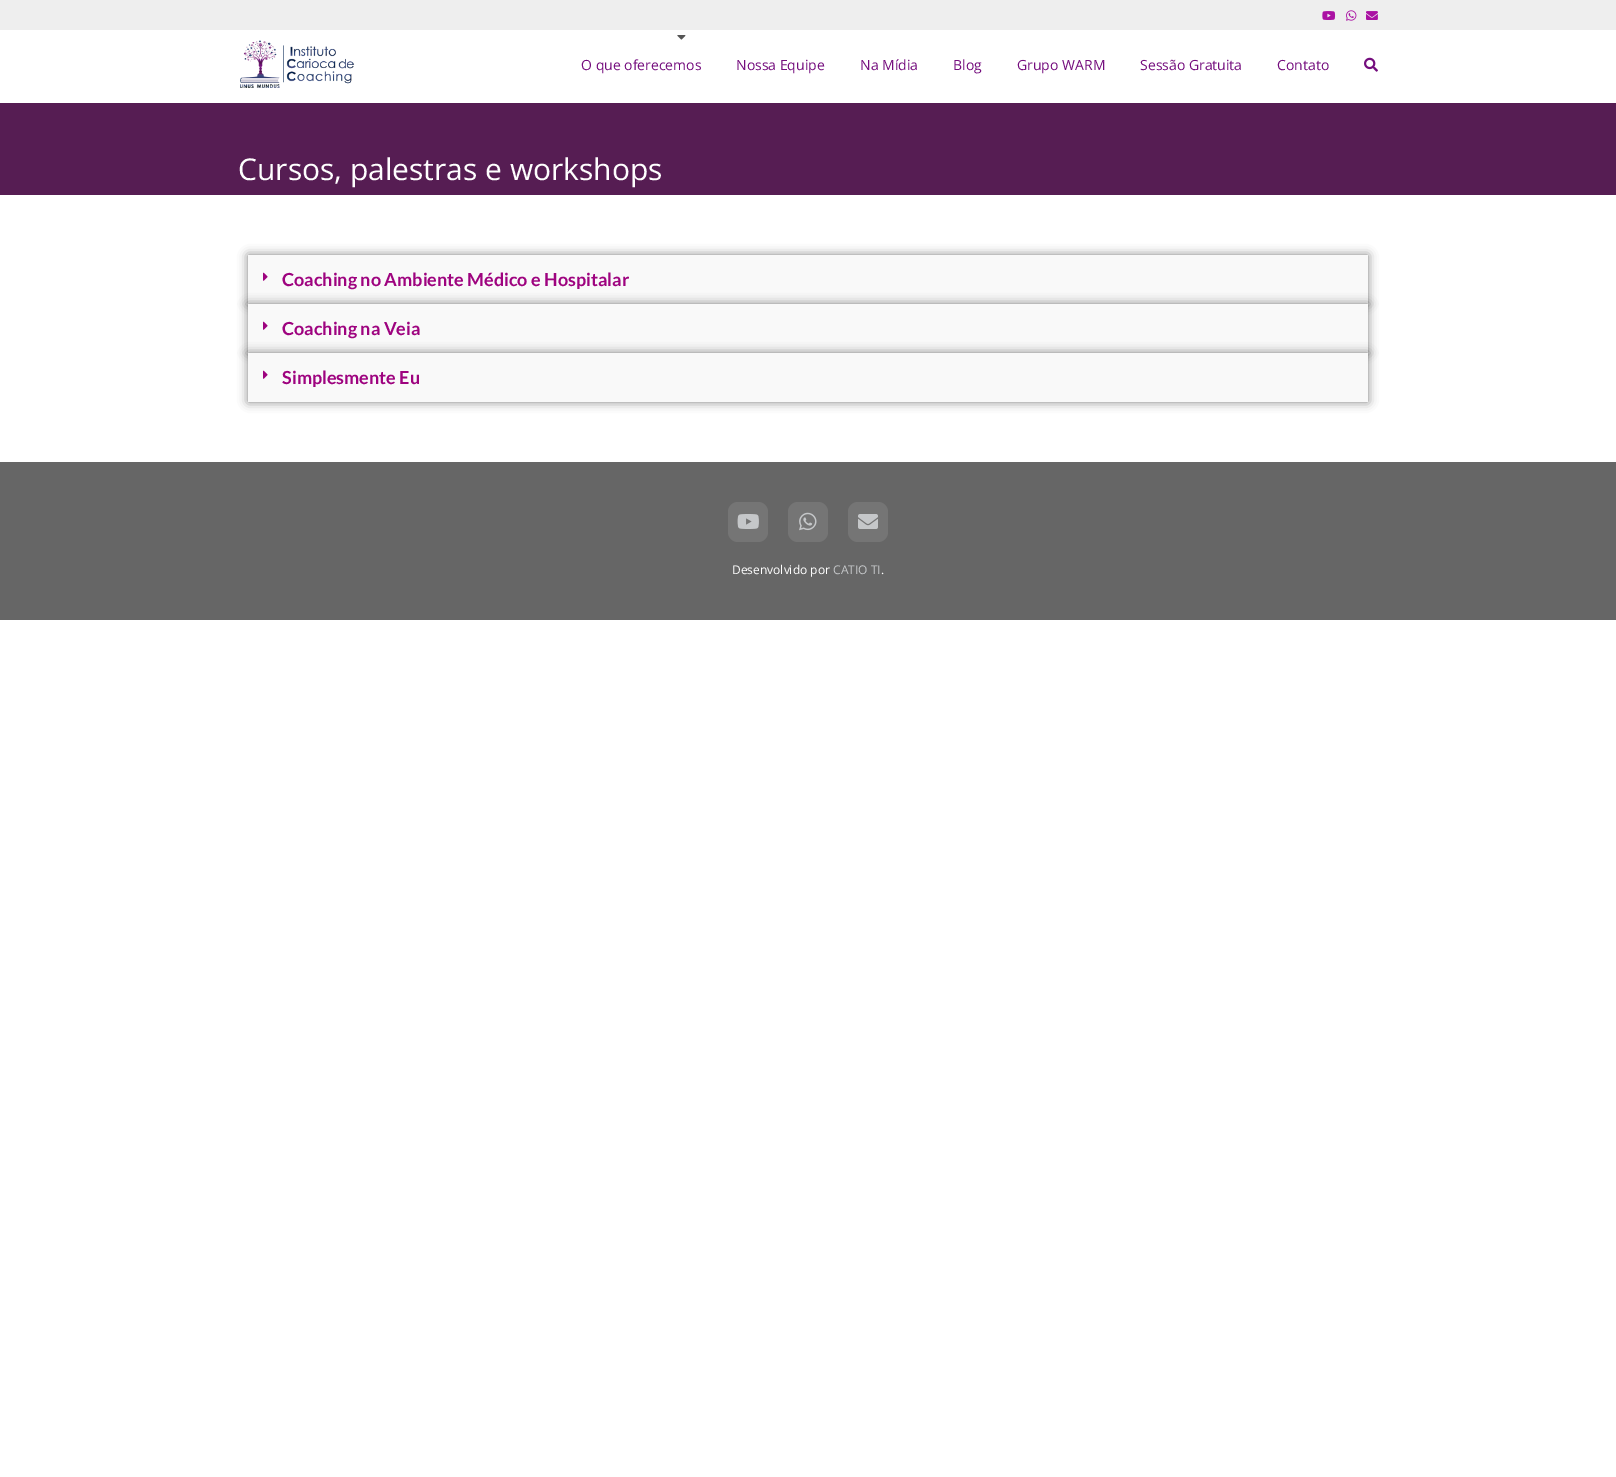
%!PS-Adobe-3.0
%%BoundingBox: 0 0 1616 1477
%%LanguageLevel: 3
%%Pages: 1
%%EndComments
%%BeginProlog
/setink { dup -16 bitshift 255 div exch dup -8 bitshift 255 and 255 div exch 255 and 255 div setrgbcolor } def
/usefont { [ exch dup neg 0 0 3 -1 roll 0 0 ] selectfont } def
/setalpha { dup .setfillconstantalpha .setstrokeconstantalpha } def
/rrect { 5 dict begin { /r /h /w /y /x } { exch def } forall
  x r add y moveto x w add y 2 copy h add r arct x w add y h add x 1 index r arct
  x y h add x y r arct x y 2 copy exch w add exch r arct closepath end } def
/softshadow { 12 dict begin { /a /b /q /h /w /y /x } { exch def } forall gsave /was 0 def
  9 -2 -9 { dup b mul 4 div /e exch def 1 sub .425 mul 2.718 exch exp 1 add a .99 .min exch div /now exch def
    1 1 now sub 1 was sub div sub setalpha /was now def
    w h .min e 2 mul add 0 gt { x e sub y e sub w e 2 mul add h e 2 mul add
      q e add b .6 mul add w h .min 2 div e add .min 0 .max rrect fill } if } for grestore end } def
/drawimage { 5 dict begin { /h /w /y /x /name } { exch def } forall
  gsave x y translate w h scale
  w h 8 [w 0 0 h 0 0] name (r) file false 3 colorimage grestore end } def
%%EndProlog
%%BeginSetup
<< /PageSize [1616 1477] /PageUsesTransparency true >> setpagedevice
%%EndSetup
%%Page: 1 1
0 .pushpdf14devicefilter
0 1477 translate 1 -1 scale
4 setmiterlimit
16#FFFFFF setink
0 0 1616 1477 rectfill
16#EEEEEE setink
0 0 1616 30 rectfill
(img1.raw) 1322 11 14 9 drawimage
(img2.raw) 1346 10 11 11 drawimage
(img3.raw) 1366 11 12 9 drawimage
(img4.raw) 240 40 115 48 drawimage
(img5.raw) 677 35 9 5 drawimage
/OpenSans-Regular 14 usefont
16#740D7D setink
[
    [(O que oferecemos) 581 70]
    [(Nossa Equipe) 736 70]
    [(Na Mídia) 860 70]
    [(Blog) 953 70]
    [(Grupo WARM) 1017 70]
    [(Sessão Gratuita) 1140 70]
    [(Contato) 1277 70]
] { aload pop moveto show } forall
(img6.raw) 1364 57 14 15 drawimage
16#561D53 setink
0 103 1616 92 rectfill
/OpenSans-Regular 30 usefont
16#FFFFFF setink
238 180 moveto (Cursos, palestras e workshops) show
16#000000 setink
248 255 1120 49 0 5 0.5 softshadow
16#F9F9F9 setink
248 255 1120 49 rectfill
(img7.raw) 263 272 5 9 drawimage
16#000000 setink
248 304 1120 49 0 5 0.5 softshadow
/Lato-Bold 18 usefont
16#9E037F setink
282 286 moveto (Coaching no Ambiente Médico e Hospitalar) show
16#F9F9F9 setink
248 304 1120 49 rectfill
(img7.raw) 263 321 5 9 drawimage
16#000000 setink
248 353 1120 49 0 5 0.5 softshadow
16#9E037F setink
282 335 moveto (Coaching na Veia) show
16#F9F9F9 setink
248 353 1120 49 rectfill
(img7.raw) 263 370 5 9 drawimage
16#9E037F setink
282 384 moveto (Simplesmente Eu) show
16#666666 setink
0 462 1616 158 rectfill
16#757575 setink
728 502 40 40 10 rrect fill
(img8.raw) 737 514 22 15 drawimage
788 502 40 40 10 rrect fill
(img9.raw) 799 512 18 19 drawimage
848 502 40 40 10 rrect fill
(img10.raw) 858 514 20 15 drawimage
/OpenSans-Regular 12 usefont
16#FFFFFF setink
732 574 moveto (Desenvolvido por) show
16#C5C7C9 setink
833 574 moveto (CATIO TI) show
16#FFFFFF setink
881 574 moveto (.) show
.poppdf14devicefilter showpage
%%EOF
